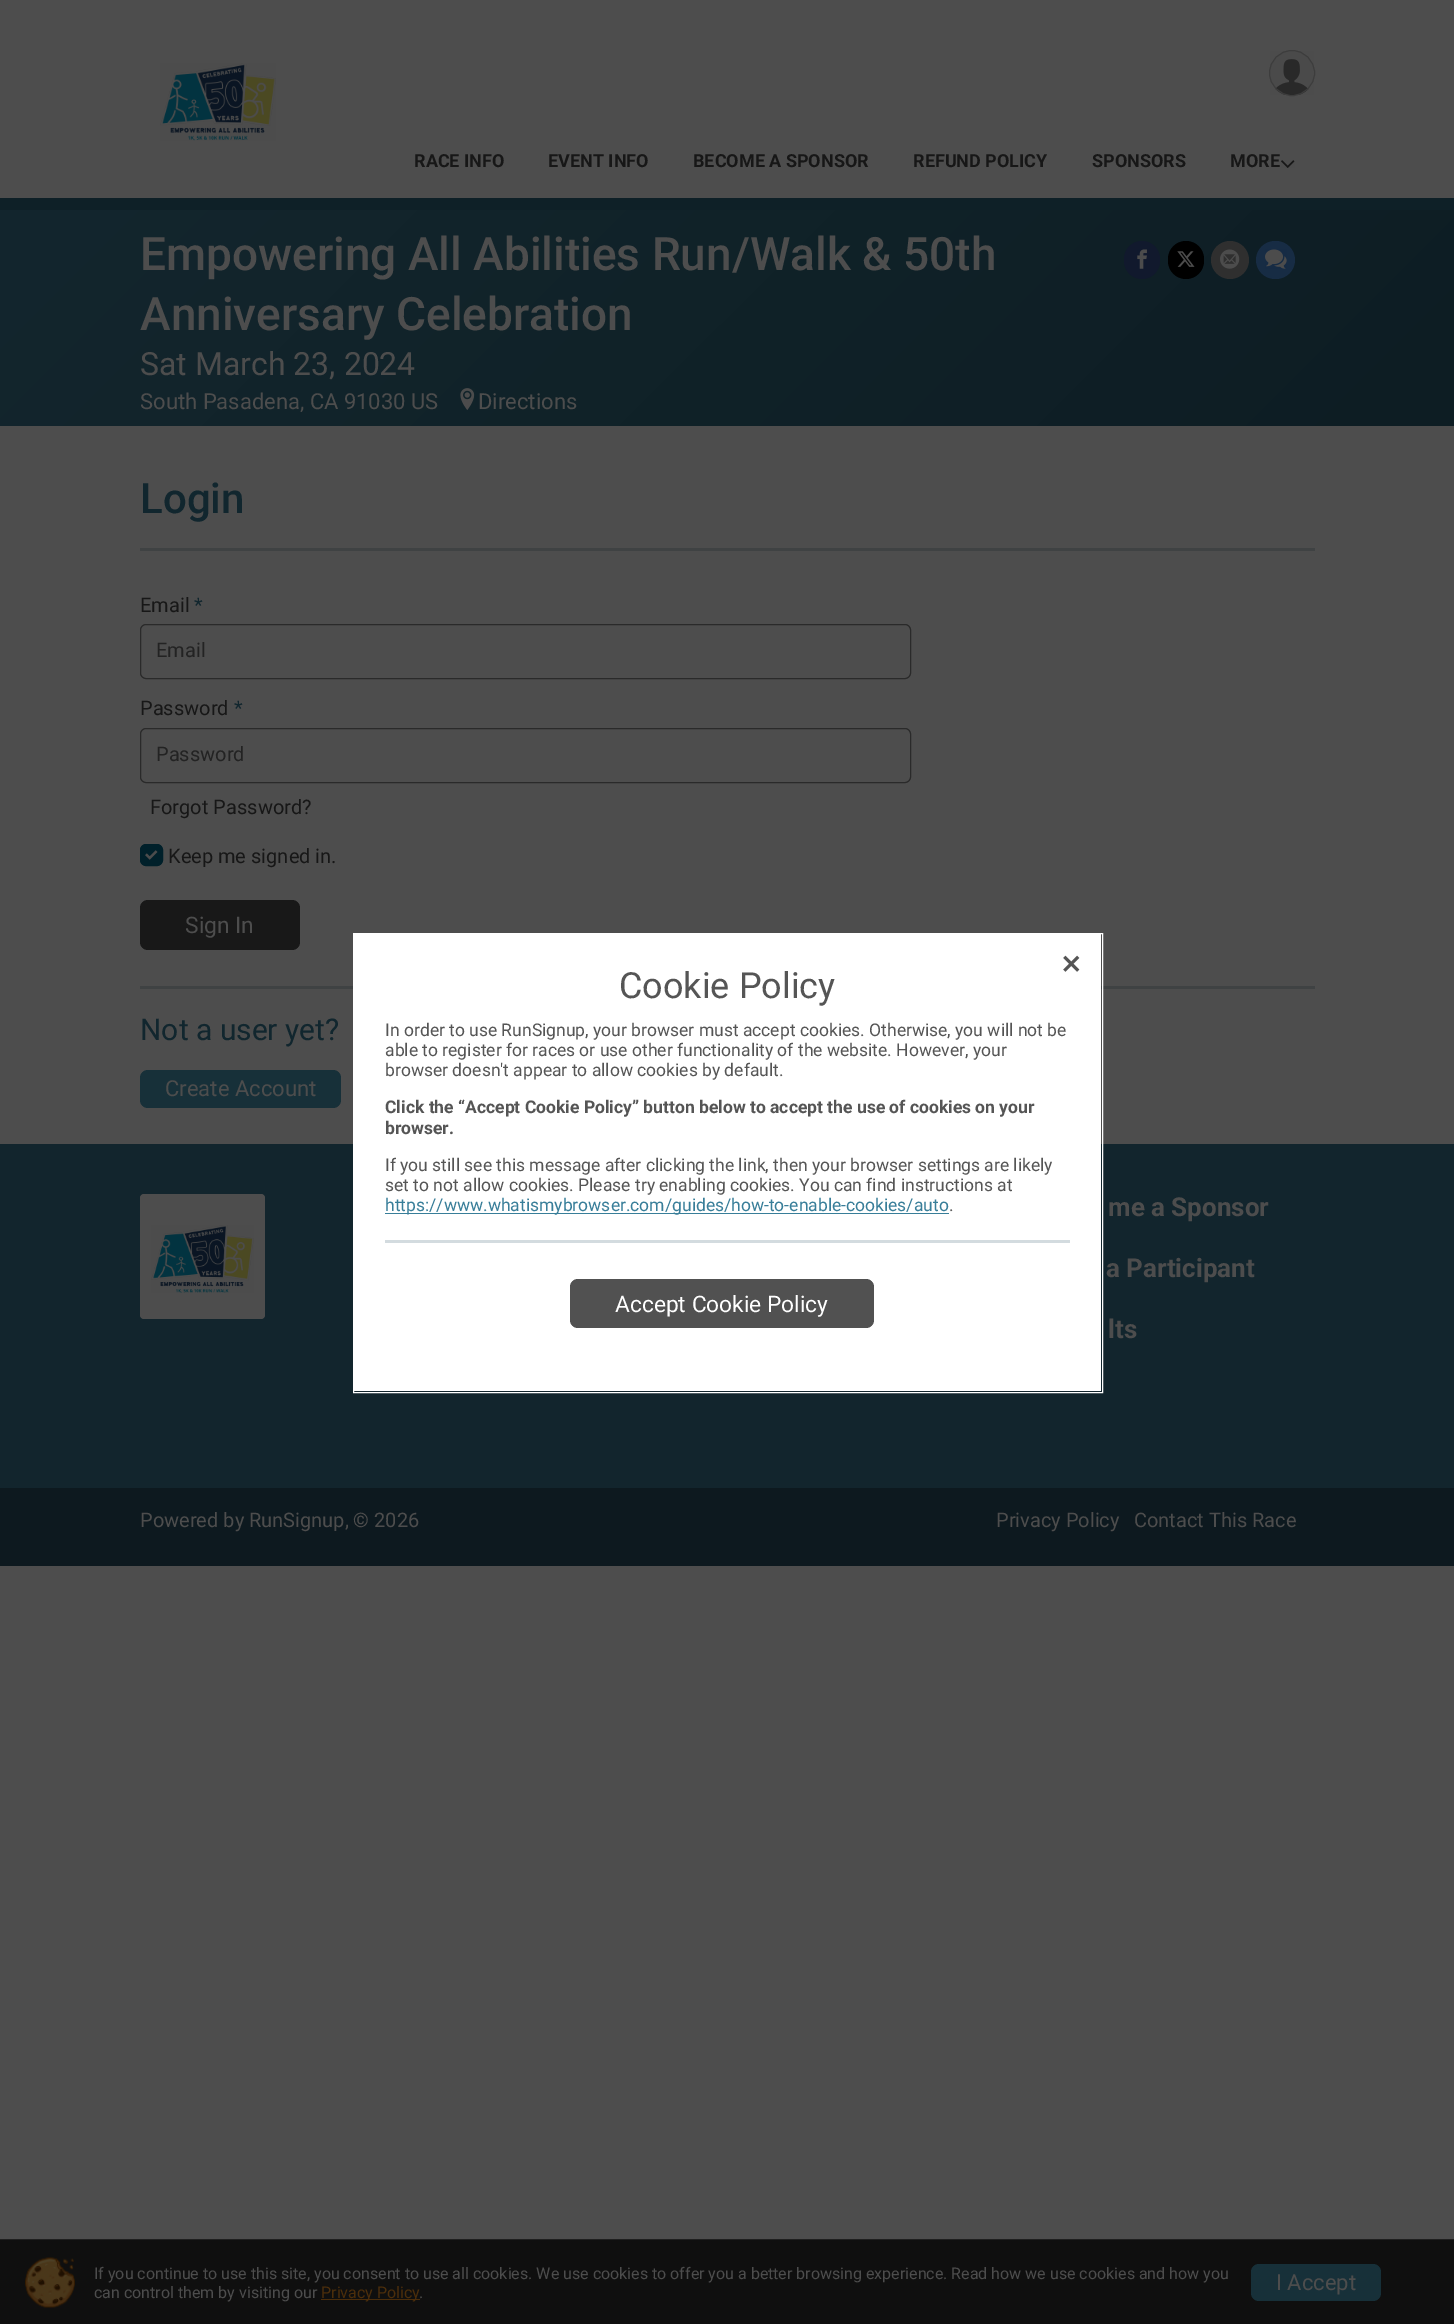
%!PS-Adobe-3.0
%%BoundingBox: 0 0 1454 2324
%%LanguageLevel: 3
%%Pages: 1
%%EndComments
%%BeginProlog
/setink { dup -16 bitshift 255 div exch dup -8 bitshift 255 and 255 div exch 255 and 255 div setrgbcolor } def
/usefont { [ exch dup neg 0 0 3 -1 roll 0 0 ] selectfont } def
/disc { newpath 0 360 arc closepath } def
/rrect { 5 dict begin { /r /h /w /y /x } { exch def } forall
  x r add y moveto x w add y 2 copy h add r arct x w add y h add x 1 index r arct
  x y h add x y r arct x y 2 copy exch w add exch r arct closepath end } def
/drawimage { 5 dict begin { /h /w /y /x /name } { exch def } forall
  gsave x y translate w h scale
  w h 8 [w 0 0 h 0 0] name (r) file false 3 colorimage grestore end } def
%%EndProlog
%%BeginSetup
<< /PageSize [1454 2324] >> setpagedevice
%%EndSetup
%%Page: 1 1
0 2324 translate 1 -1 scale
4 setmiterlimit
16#4D4D4D setink
0 0 1454 2324 rectfill
(img1.raw) 160 63 116 78 drawimage
(img2.raw) 1270 51 44 44 drawimage
16#3D3D3D setink
1292 73 22.5 disc stroke
/Roboto-Bold 18 usefont
16#171717 setink
[
    [(RACE INFO) 414 167]
    [(EVENT INFO) 548 167]
    [(BECOME A SPONSOR) 693 167]
    [(REFUND POLICY) 913 167]
    [(SPONSORS) 1092 167]
    [(MORE) 1230 167]
] { aload pop moveto show } forall
(img3.raw) 1281 160 14 8 drawimage
gsave 0 210 moveto 1454 210 lineto 1454 426 lineto 0 426 lineto closepath clip newpath
<< /ShadingType 2 /ColorSpace /DeviceRGB /Coords [1145 736 310 -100] /Extend [true true] /Function << /FunctionType 2 /Domain [0 1] /C0 [0.051 0.114 0.137] /C1 [0.075 0.149 0.18] /N 1 >> >> shfill grestore
16#0E2027 setink
0 198 1454 12 rectfill
/Roboto-Medium 46 usefont
16#4D4D4D setink
140 270 moveto (Empowering All Abilities Run/Walk & 50th) show
140 330 moveto (Anniversary Celebration) show
/Roboto-Regular 32 usefont
140 375 moveto (Sat March 23, 2024) show
/Roboto-Regular 22 usefont
140 409 moveto (South Pasadena, CA 91030 US) show
(img4.raw) 460 388 15 22 drawimage
478 409 moveto (Directions) show
16#11192D setink
1124 241 36 38 18 rrect fill
(img5.raw) 1137 249 10 20 drawimage
16#000000 setink
1168 241 36 38 18 rrect fill
(img6.raw) 1177 251 18 16 drawimage
16#2F2F2F setink
1230 260 19 disc fill
(img7.raw) 1220 249 20 20 drawimage
16#172C44 setink
1256 241 39 38 19 rrect fill
(img8.raw) 1265 249 22 20 drawimage
/Roboto-Medium 42 usefont
16#11262E setink
140 513 moveto (Login) show
16#3F4243 setink
140 548 1175 3 rectfill
/Roboto-Regular 20 usefont
16#171717 setink
140 612 moveto (Email) show
16#11262E setink
194 612 moveto (*) show
16#2A2A2A setink
140.5 624.5 770 54 5.5 rrect stroke
16#232323 setink
156 657 moveto (Email) show
16#171717 setink
140 715 moveto (Password) show
16#11262E setink
234 715 moveto (*) show
16#2A2A2A setink
140.5 728.5 770 54 5.5 rrect stroke
16#232323 setink
156 761 moveto (Password) show
16#171717 setink
150 814 moveto (Forgot Password?) show
16#00202A setink
140.5 844.5 22 21 5.5 rrect gsave fill grestore
stroke
(img9.raw) 145 850 13 10 drawimage
16#171717 setink
168 863 moveto (Keep me signed in.) show
16#181818 setink
140 900 160 50 8 rrect fill
/Roboto-Regular 22.75 usefont
16#4D4D4D setink
185 933 moveto (Sign In) show
16#3F4243 setink
140 986 1175 3 rectfill
/Roboto-Regular 30 usefont
16#11262E setink
140 1040 moveto (Not a user yet?) show
16#173039 setink
140 1070 201 38 8 rrect fill
/Roboto-Regular 22 usefont
16#4D4D4D setink
165 1096 moveto (Create Account) show
16#0D191F setink
0 1488 1454 78 rectfill
16#12252D setink
0 1144 1454 344 rectfill
16#4D4D4D setink
140 1194 125 125 4 rrect fill
(img10.raw) 151 1225 103 68 drawimage
/Roboto-Bold 26 usefont
[
    [(me a Sponsor) 1108 1216]
    [(a Participant) 1106 1277]
    [(lts) 1108 1338]
] { aload pop moveto show } forall
/Roboto-Regular 20 usefont
[
    [(Powered by RunSignup, © 2026) 140 1527]
    [(Privacy Policy) 996 1527]
    [(Contact This Race) 1134 1527]
] { aload pop moveto show } forall
16#FFFFFF setink
353.5 933.5 749 459 rectstroke
354 934 747 457 rectfill
(img11.raw) 1063 955 17 17 drawimage
/Roboto-Regular 36 usefont
16#555555 setink
619 998 moveto (Cookie Policy) show
/Roboto-Regular 17.5 usefont
[
    [(In order to use RunSignup, your browser must accept cookies. Otherwise, you will not be) 385 1036]
    [(able to register for races or use other functionality of the website. However, your) 385 1056]
    [(browser doesn't appear to allow cookies by default.) 385 1076]
] { aload pop moveto show } forall
/Roboto-Bold 17.5 usefont
385 1113 moveto (Click the “Accept Cookie Policy” button below to accept the use of cookies on your) show
385 1134 moveto (browser.) show
/Roboto-Regular 17.5 usefont
385 1171 moveto (If you still see this message after clicking the link, then your browser settings are likely) show
385 1191 moveto (set to not allow cookies. Please try enabling cookies. You can find instructions at) show
16#387E99 setink
385 1213 564 1 rectfill
385 1211 moveto (https://www.whatismybrowser.com/guides/how-to-enable-cookies/auto) show
16#555555 setink
949 1211 moveto (.) show
16#D3DBDF setink
385 1240 685 3 rectfill
16#515151 setink
570 1279 304 49 8 rrect fill
/Roboto-Regular 22.75 usefont
16#FFFFFF setink
615 1312 moveto (Accept Cookie Policy) show
16#0F0F0F setink
0 2240 1454 84 rectfill
16#1F1F1F setink
0 2239 1454 1 rectfill
(img12.raw) 25 2257 50 51 drawimage
/Roboto-Regular 16 usefont
16#4D4D4D setink
94 2279 moveto (If you continue to use this site, you consent to use all cookies. We use cookies to offer you a better browsing experience. Read how we use cookies and how you) show
94 2298 moveto (can control them by visiting our) show
16#4C2E0B setink
321 2299 99 1 rectfill
321 2298 moveto (Privacy Policy) show
16#4D4D4D setink
419 2298 moveto (.) show
16#173039 setink
1251 2264 130 37 8 rrect fill
/Roboto-Regular 22 usefont
16#4D4D4D setink
1276 2290 moveto (I Accept) show
showpage
%%EOF
